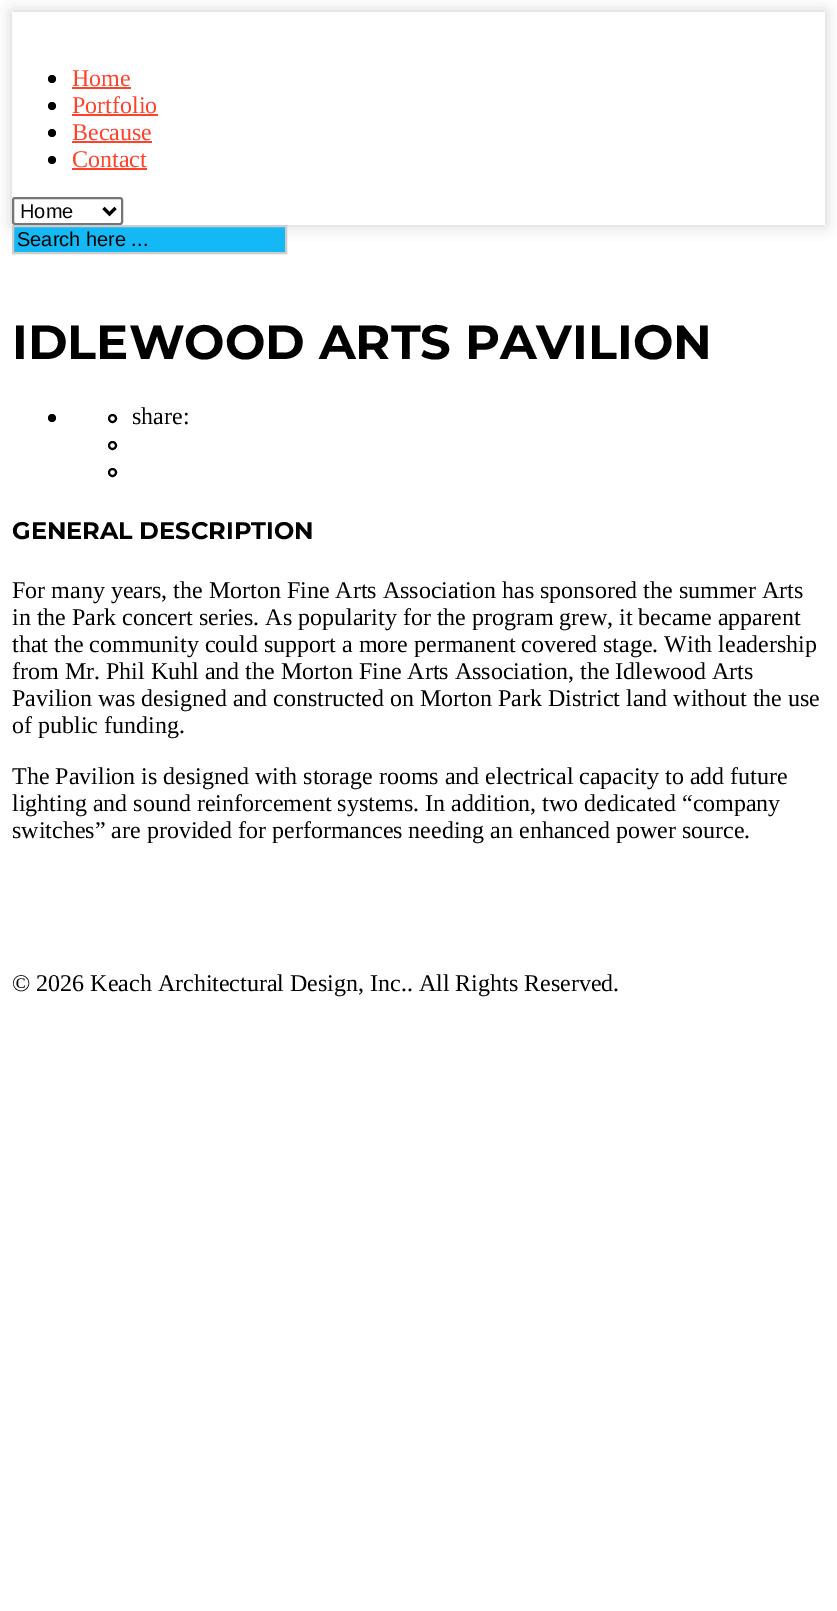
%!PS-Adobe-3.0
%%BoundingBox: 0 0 837 1611
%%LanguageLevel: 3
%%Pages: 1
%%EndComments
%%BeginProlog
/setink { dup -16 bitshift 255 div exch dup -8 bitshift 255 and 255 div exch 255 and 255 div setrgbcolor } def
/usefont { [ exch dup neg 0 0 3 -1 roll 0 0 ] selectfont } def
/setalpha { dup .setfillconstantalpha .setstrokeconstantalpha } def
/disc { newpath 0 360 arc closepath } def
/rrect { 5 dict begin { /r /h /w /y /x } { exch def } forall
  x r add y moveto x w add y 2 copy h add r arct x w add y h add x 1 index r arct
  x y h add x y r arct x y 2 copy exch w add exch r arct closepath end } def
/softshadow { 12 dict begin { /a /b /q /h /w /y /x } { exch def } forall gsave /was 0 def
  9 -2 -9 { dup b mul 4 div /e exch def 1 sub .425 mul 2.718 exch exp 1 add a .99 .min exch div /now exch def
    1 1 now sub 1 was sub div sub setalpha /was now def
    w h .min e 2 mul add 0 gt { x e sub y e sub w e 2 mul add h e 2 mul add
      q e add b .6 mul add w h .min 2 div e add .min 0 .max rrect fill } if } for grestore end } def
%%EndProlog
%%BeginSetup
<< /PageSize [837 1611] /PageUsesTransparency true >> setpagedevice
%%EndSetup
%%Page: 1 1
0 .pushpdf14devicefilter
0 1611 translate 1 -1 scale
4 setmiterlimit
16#FFFFFF setink
0 0 837 1611 rectfill
gsave
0 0 moveto 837 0 lineto 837 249 lineto 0 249 lineto closepath 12 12 moveto 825 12 lineto 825 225 lineto 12 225 lineto closepath eoclip newpath
16#CCCCCC setink
12 12 813 213 0 7.5 1 softshadow
grestore
16#000000 setink
52 79 4 disc fill
/LiberationSerif-Regular 24 usefont
16#FF4229 setink
72 86 moveto (Home) show
72 87 59 2 rectfill
16#000000 setink
52 106 4 disc fill
16#FF4229 setink
72 113 moveto (Portfolio) show
72 114 86 2 rectfill
16#000000 setink
52 133 4 disc fill
16#FF4229 setink
72 140 moveto (Because) show
72 141 80 2 rectfill
16#000000 setink
52 160 4 disc fill
16#FF4229 setink
72 167 moveto (Contact) show
72 168 75 2 rectfill
16#767676 setink
2 setlinewidth
13 198 109 26 2 rrect stroke
16#000000 setink
3 setlinewidth
103.5 208 moveto 109.5 214 lineto 115.5 208 lineto stroke
/LiberationSans-Regular 20 usefont
20 218 moveto (Home) show
16#14B8F5 setink
13 226 moveto 286 226 lineto 286 253 lineto 13 253 lineto closepath gsave fill grestore
16#CCCCCC setink
2 setlinewidth
stroke
16#000000 setink
17 246 moveto (Search here ...) show
/Montserrat-Bold 48 usefont
12 359 moveto (IDLEWOOD ARTS PAVILION) show
52 418 4 disc fill
112.5 418.5 3.5 disc stroke
/LiberationSerif-Regular 24 usefont
132 424 moveto (share:) show
112.5 445.5 3.5 disc stroke
112.5 472.5 3.5 disc stroke
/Montserrat-Bold 24 usefont
12 539 moveto (GENERAL DESCRIPTION) show
/LiberationSerif-Regular 24 usefont
[
    [(For many years, the Morton Fine Arts Association has sponsored the summer Arts) 12 598]
    [(in the Park concert series. As popularity for the program grew, it became apparent) 12 625]
    [(that the community could support a more permanent covered stage. With leadership) 12 652]
    [(from Mr. Phil Kuhl and the Morton Fine Arts Association, the Idlewood Arts) 12 679]
    [(Pavilion was designed and constructed on Morton Park District land without the use) 12 706]
    [(of public funding.) 12 733]
    [(The Pavilion is designed with storage rooms and electrical capacity to add future) 12 784]
    [(lighting and sound reinforcement systems. In addition, two dedicated “company) 12 811]
    [(switches” are provided for performances needing an enhanced power source.) 12 838]
    [(© 2026 Keach Architectural Design, Inc.. All Rights Reserved.) 12 991]
] { aload pop moveto show } forall
.poppdf14devicefilter showpage
%%EOF
